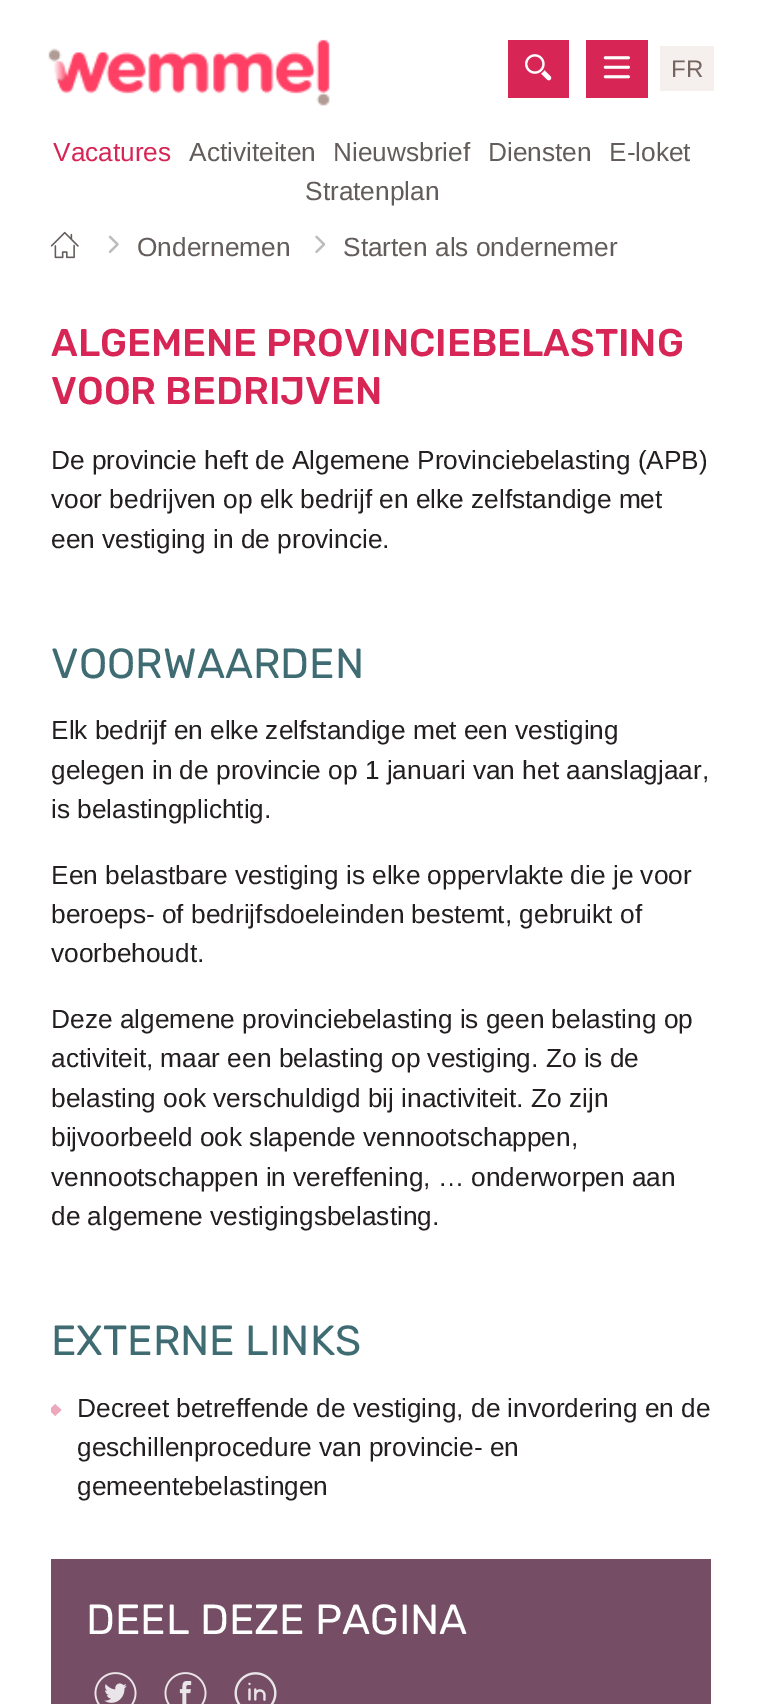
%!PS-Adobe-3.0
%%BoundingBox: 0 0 761 1704
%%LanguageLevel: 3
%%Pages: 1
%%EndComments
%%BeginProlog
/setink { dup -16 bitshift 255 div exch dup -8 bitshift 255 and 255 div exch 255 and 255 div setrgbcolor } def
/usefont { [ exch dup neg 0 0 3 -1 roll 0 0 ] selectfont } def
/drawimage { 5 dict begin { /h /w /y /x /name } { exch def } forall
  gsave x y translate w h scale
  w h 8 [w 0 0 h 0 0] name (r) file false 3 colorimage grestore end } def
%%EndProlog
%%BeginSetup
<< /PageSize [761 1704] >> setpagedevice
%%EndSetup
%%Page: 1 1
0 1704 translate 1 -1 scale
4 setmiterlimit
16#FFFFFF setink
0 0 761 1704 rectfill
(img1.raw) 48 39 282 67 drawimage
16#D72656 setink
508 40 61 58 rectfill
(img2.raw) 525 54 27 27 drawimage
586 40 62 58 rectfill
(img3.raw) 603 56 27 23 drawimage
16#F5F0ED setink
660 46 54 45 rectfill
/LiberationSans-Regular 24 usefont
16#746561 setink
671 77 moveto (FR) show
/LiberationSans-Regular 26.25 usefont
16#D72656 setink
53 161 moveto (Vacatures) show
16#625C5A setink
[
    [(Activiteiten) 189 161]
    [(Nieuwsbrief) 333 161]
    [(Diensten) 488 161]
    [(E-loket) 609 161]
    [(Stratenplan) 305 200]
] { aload pop moveto show } forall
(img4.raw) 50 231 29 28 drawimage
(img5.raw) 108 235 11 18 drawimage
137 256 moveto (Ondernemen) show
(img6.raw) 315 235 11 18 drawimage
343 256 moveto (Starten als ondernemer) show
/Rubik-Medium 38.5 usefont
16#D72656 setink
51 356 moveto (ALGEMENE PROVINCIEBELASTING) show
51 404 moveto (VOOR BEDRIJVEN) show
/LiberationSans-Regular 26.25 usefont
16#231F20 setink
[
    [(De provincie heft de Algemene Provinciebelasting \(APB\)) 51 469]
    [(voor bedrijven op elk bedrijf en elke zelfstandige met) 51 508]
    [(een vestiging in de provincie.) 51 548]
] { aload pop moveto show } forall
/Rubik-Regular 42 usefont
16#3F6C72 setink
51 678 moveto (VOORWAARDEN) show
/LiberationSans-Regular 26.25 usefont
16#231F20 setink
[
    [(Elk bedrijf en elke zelfstandige met een vestiging) 51 739]
    [(gelegen in de provincie op 1 januari van het aanslagjaar,) 51 779]
    [(is belastingplichtig.) 51 818]
    [(Een belastbare vestiging is elke oppervlakte die je voor) 51 884]
    [(beroeps- of bedrijfsdoeleinden bestemt, gebruikt of) 51 923]
    [(voorbehoudt.) 51 962]
    [(Deze algemene provinciebelasting is geen belasting op) 51 1028]
    [(activiteit, maar een belasting op vestiging. Zo is de) 51 1067]
    [(belasting ook verschuldigd bij inactiviteit. Zo zijn) 51 1107]
    [(bijvoorbeeld ook slapende vennootschappen,) 51 1146]
    [(vennootschappen in vereffening, … onderworpen aan) 51 1186]
    [(de algemene vestigingsbelasting.) 51 1225]
] { aload pop moveto show } forall
/Rubik-Regular 42 usefont
16#3F6C72 setink
51 1355 moveto (EXTERNE LINKS) show
gsave
51 1314 660 193 rectclip
16#EFA8BB setink
55 1404 moveto 61.5 1410 lineto 55 1416 lineto 49 1410 lineto closepath fill
grestore
/LiberationSans-Regular 26.25 usefont
16#231F20 setink
[
    [(Decreet betreffende de vestiging, de invordering en de) 77 1417]
    [(geschillenprocedure van provincie- en) 77 1456]
    [(gemeentebelastingen) 77 1495]
] { aload pop moveto show } forall
16#754E65 setink
51 1559 660 145 rectfill
/Rubik-Regular 42 usefont
16#FFFFFF setink
86 1634 moveto (DEEL DEZE PAGINA) show
(img7.raw) 94 1672 43 32 drawimage
(img8.raw) 164 1672 43 32 drawimage
(img9.raw) 234 1672 43 32 drawimage
showpage
%%EOF
